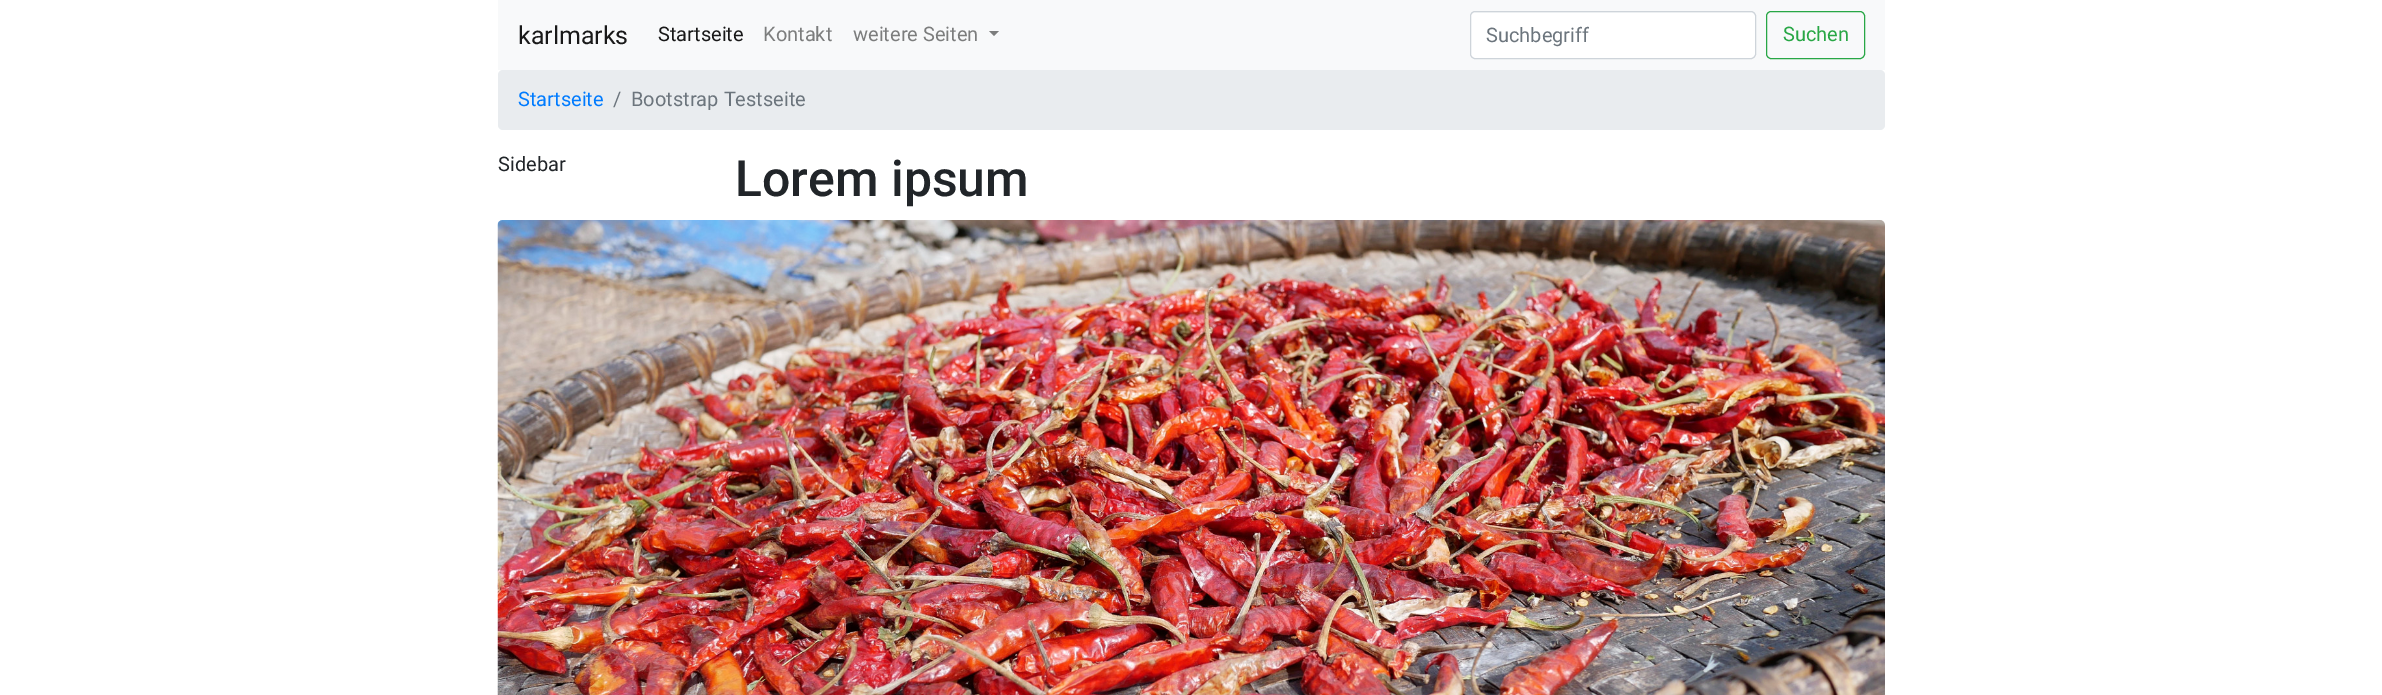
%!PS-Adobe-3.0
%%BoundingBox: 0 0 2382 695
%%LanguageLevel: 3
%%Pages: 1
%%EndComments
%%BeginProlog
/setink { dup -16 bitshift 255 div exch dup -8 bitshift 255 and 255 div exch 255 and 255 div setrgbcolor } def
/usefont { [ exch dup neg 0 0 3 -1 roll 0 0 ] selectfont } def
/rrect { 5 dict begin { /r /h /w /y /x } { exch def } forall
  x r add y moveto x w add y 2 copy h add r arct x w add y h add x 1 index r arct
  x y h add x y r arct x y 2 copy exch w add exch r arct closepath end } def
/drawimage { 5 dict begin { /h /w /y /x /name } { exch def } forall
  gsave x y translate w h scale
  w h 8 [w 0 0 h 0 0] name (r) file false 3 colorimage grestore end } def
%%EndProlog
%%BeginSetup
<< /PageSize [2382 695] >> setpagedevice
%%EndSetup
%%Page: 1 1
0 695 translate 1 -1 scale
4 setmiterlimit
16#FFFFFF setink
0 0 2382 695 rectfill
16#F8F9FA setink
498 0 1387 70 rectfill
/Roboto-Regular 25 usefont
16#191919 setink
518 44 moveto (karlmarks) show
/Roboto-Regular 20 usefont
658 41 moveto (Startseite) show
16#7C7D7D setink
763 41 moveto (Kontakt) show
853 41 moveto (weitere Seiten) show
989 31 moveto 999 31 lineto 994 36 lineto closepath fill
16#FFFFFF setink
1471 13 284 45 4 rrect fill
16#CED4DA setink
1470.5 11.5 285 47 4.5 rrect stroke
16#6C757D setink
1486 42 moveto (Suchbegriff) show
16#28A745 setink
1766.5 11.5 98 47 4.5 rrect stroke
1783 41 moveto (Suchen) show
16#E9ECEF setink
498 70 1387 60 5 rrect fill
16#007BFF setink
518 106 moveto (Startseite) show
16#6C757D setink
613 106 moveto (/) show
631 106 moveto (Bootstrap Testseite) show
16#212529 setink
498 171 moveto (Sidebar) show
/Roboto-Medium 50 usefont
735 196 moveto (Lorem ipsum) show
(img1.raw) 497 220 1388 475 drawimage
showpage
%%EOF
